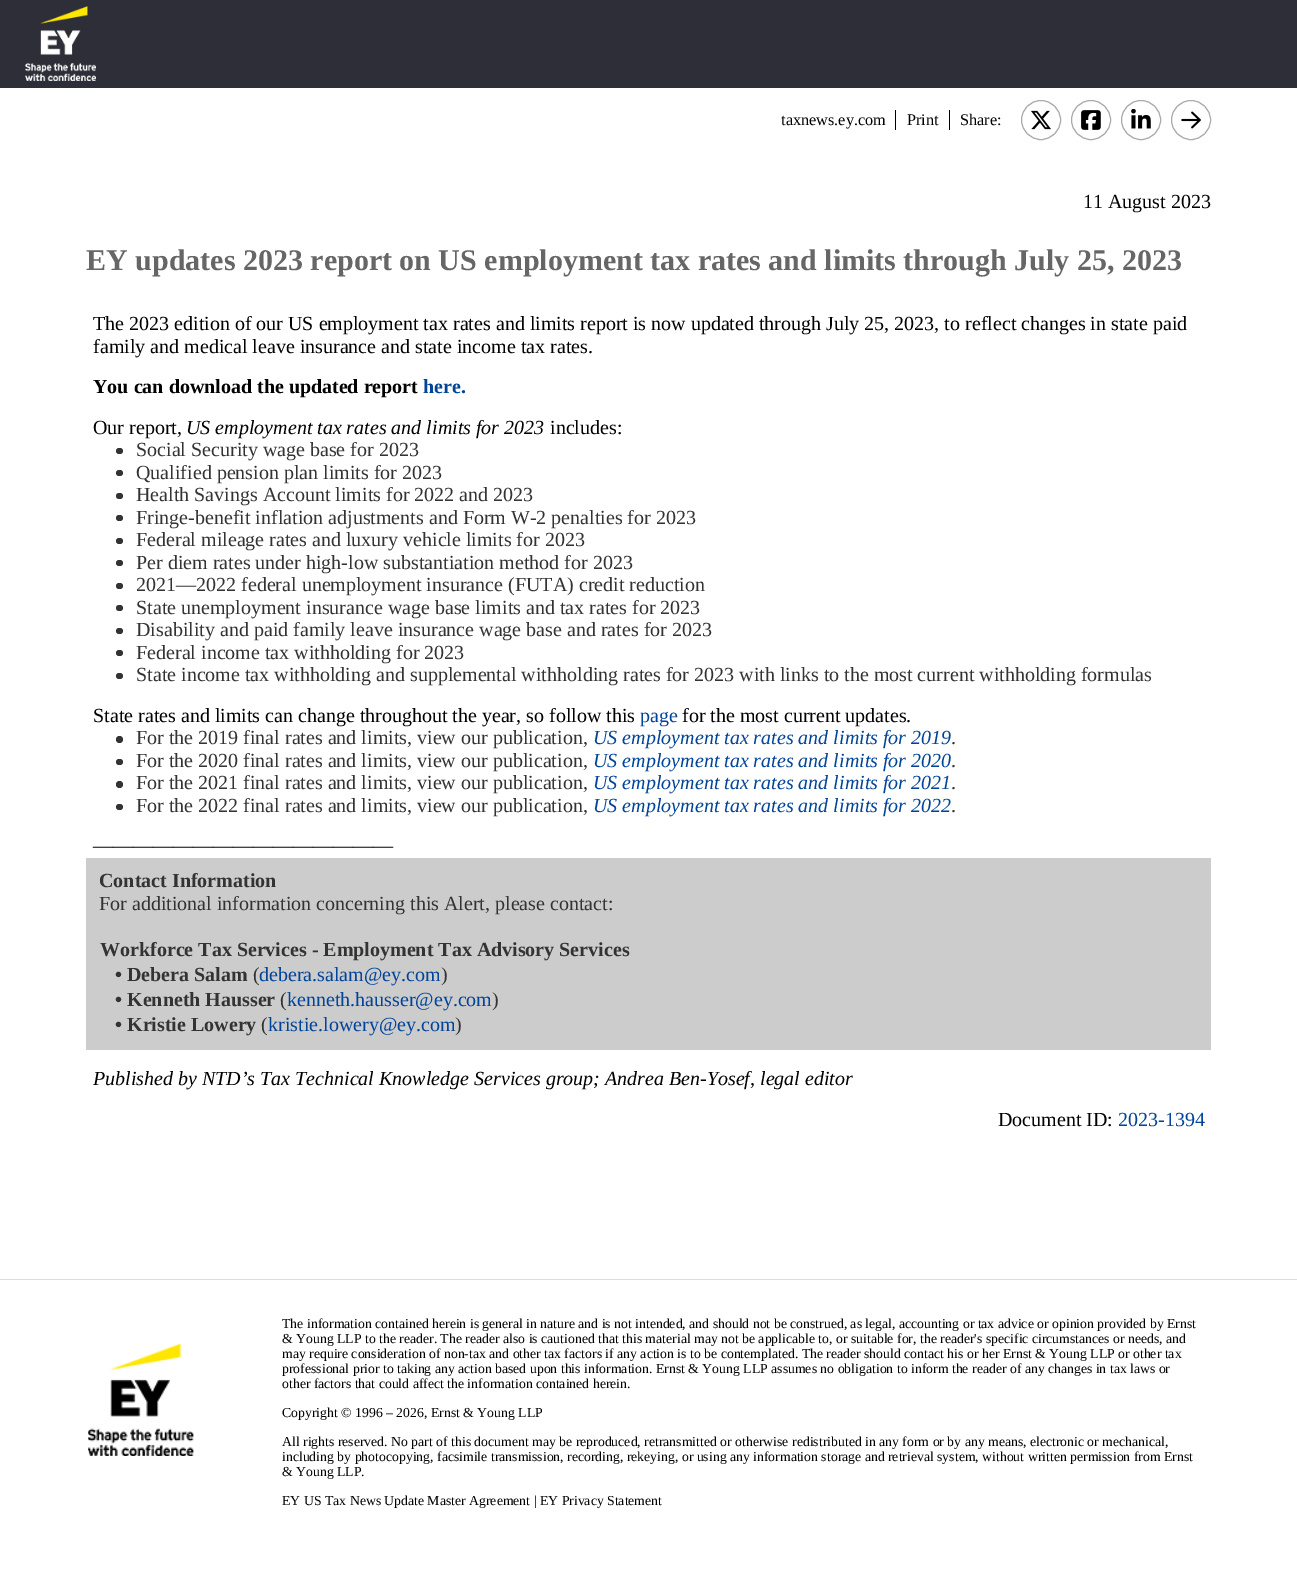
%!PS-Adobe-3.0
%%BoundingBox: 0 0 1297 1571
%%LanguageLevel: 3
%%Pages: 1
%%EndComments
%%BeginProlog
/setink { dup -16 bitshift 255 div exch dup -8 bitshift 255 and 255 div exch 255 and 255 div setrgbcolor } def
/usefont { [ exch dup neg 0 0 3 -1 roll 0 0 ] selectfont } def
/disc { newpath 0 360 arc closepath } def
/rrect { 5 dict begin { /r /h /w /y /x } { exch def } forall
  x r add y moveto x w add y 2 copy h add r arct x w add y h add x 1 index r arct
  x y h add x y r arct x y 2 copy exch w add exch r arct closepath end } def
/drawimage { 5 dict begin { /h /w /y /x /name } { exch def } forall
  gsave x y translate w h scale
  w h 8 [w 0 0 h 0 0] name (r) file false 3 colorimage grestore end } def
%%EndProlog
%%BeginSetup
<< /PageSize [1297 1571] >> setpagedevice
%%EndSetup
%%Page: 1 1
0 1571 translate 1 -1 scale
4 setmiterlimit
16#FFFFFF setink
0 0 1297 1571 rectfill
16#2E2E38 setink
0 0 1297 88 rectfill
(img1.raw) 25 6 71 75 drawimage
/LiberationSerif-Regular 16.25 usefont
16#000000 setink
781 125 moveto (taxnews.ey.com) show
895 110 1 20 rectfill
907 125 moveto (Print) show
949 110 1 20 rectfill
960 125 moveto (Share:) show
16#AAAAAA setink
1041 120 19.5 disc stroke
(img2.raw) 1031 110 20 20 drawimage
1091 120 19.5 disc stroke
(img3.raw) 1081 110 20 20 drawimage
1141 120 19.5 disc stroke
(img4.raw) 1131 109 20 20 drawimage
1191 120 19.5 disc stroke
(img5.raw) 1181 111 20 18 drawimage
/LiberationSerif-Regular 20 usefont
16#000000 setink
1083 208 moveto (11 August 2023) show
/LiberationSerif-Bold 30 usefont
16#666666 setink
86 270 moveto (EY updates 2023 report on US employment tax rates and limits through July 25, 2023) show
/LiberationSerif-Regular 20 usefont
16#000000 setink
93 330 moveto (The 2023 edition of our US employment tax rates and limits report is now updated through July 25, 2023, to reflect changes in state paid) show
93 353 moveto (family and medical leave insurance and state income tax rates.) show
/LiberationSerif-Bold 20 usefont
93 393 moveto (You can download the updated report) show
16#004499 setink
423 393 moveto (here.) show
/LiberationSerif-Regular 20 usefont
16#000000 setink
93 434 moveto (Our report,) show
/LiberationSerif-Italic 20 usefont
186 434 moveto (US employment tax rates and limits for 2023) show
/LiberationSerif-Regular 20 usefont
550 434 moveto (includes:) show
16#333333 setink
116 448 7 6 3 rrect fill
136 456 moveto (Social Security wage base for 2023) show
116 470 7 6 3 rrect fill
136 479 moveto (Qualified pension plan limits for 2023) show
116 493 7 6 3 rrect fill
136 501 moveto (Health Savings Account limits for 2022 and 2023) show
116 515 7 6 3 rrect fill
136 524 moveto (Fringe-benefit inflation adjustments and Form W-2 penalties for 2023) show
116 538 7 6 3 rrect fill
136 546 moveto (Federal mileage rates and luxury vehicle limits for 2023) show
116 560 7 6 3 rrect fill
136 569 moveto (Per diem rates under high-low substantiation method for 2023) show
116 583 7 6 3 rrect fill
136 591 moveto (2021—2022 federal unemployment insurance \(FUTA\) credit reduction) show
116 605 7 6 3 rrect fill
136 614 moveto (State unemployment insurance wage base limits and tax rates for 2023) show
116 628 7 6 3 rrect fill
136 636 moveto (Disability and paid family leave insurance wage base and rates for 2023) show
116 650 7 6 3 rrect fill
136 659 moveto (Federal income tax withholding for 2023) show
116 673 7 6 3 rrect fill
136 681 moveto (State income tax withholding and supplemental withholding rates for 2023 with links to the most current withholding formulas) show
16#000000 setink
93 722 moveto (State rates and limits can change throughout the year, so follow this) show
16#004499 setink
640 722 moveto (page) show
16#000000 setink
682 722 moveto (for the most current updates.) show
16#333333 setink
119.5 739.5 3.5 disc fill
136 744 moveto (For the 2019 final rates and limits, view our publication,) show
/LiberationSerif-Italic 20 usefont
16#004499 setink
593 744 moveto (US employment tax rates and limits for 2019) show
/LiberationSerif-Regular 20 usefont
16#333333 setink
951 744 moveto (.) show
116 759 7 6 3 rrect fill
136 767 moveto (For the 2020 final rates and limits, view our publication,) show
/LiberationSerif-Italic 20 usefont
16#004499 setink
593 767 moveto (US employment tax rates and limits for 2020) show
/LiberationSerif-Regular 20 usefont
16#333333 setink
951 767 moveto (.) show
119.5 784.5 3.5 disc fill
136 789 moveto (For the 2021 final rates and limits, view our publication,) show
/LiberationSerif-Italic 20 usefont
16#004499 setink
593 789 moveto (US employment tax rates and limits for 2021) show
/LiberationSerif-Regular 20 usefont
16#333333 setink
951 789 moveto (.) show
116 804 7 6 3 rrect fill
136 812 moveto (For the 2022 final rates and limits, view our publication,) show
/LiberationSerif-Italic 20 usefont
16#004499 setink
593 812 moveto (US employment tax rates and limits for 2022) show
/LiberationSerif-Regular 20 usefont
16#333333 setink
951 812 moveto (.) show
16#000000 setink
93 852 moveto (———————————————) show
16#CCCCCC setink
86 858 1125 192 rectfill
/LiberationSerif-Bold 20 usefont
16#333333 setink
99 887 moveto (Contact Information) show
/LiberationSerif-Regular 20 usefont
99 910 moveto (For additional information concerning this Alert, please contact:) show
/LiberationSerif-Bold 20 usefont
100 956 moveto (Workforce Tax Services - Employment Tax Advisory Services) show
115 981 moveto (• Debera Salam) show
/LiberationSerif-Regular 20 usefont
253 981 moveto (\() show
16#004499 setink
259 981 moveto (debera.salam@ey.com) show
16#333333 setink
441 981 moveto (\)) show
/LiberationSerif-Bold 20 usefont
115 1006 moveto (• Kenneth Hausser) show
/LiberationSerif-Regular 20 usefont
280 1006 moveto (\() show
16#004499 setink
287 1006 moveto (kenneth.hausser@ey.com) show
16#333333 setink
492 1006 moveto (\)) show
/LiberationSerif-Bold 20 usefont
115 1031 moveto (• Kristie Lowery) show
/LiberationSerif-Regular 20 usefont
261 1031 moveto (\() show
16#004499 setink
268 1031 moveto (kristie.lowery@ey.com) show
16#333333 setink
455 1031 moveto (\)) show
/LiberationSerif-Italic 20 usefont
16#000000 setink
93 1085 moveto (Published by NTD’s Tax Technical Knowledge Services group; Andrea Ben-Yosef, legal editor) show
/LiberationSerif-Regular 20 usefont
998 1126 moveto (Document ID:) show
16#004499 setink
1118 1126 moveto (2023-1394) show
16#DDDDDD setink
0 1279 1297 1 rectfill
(img6.raw) 88 1344 106 112 drawimage
/LiberationSerif-Regular 13.75 usefont
16#000000 setink
[
    [(The information contained herein is general in nature and is not intended, and should not be construed, as legal, accounting or tax advice or opinion provided by Ernst) 282 1328]
    [(& Young LLP to the reader. The reader also is cautioned that this material may not be applicable to, or suitable for, the reader's specific circumstances or needs, and) 282 1343]
    [(may require consideration of non-tax and other tax factors if any action is to be contemplated. The reader should contact his or her Ernst & Young LLP or other tax) 282 1358]
    [(professional prior to taking any action based upon this information. Ernst & Young LLP assumes no obligation to inform the reader of any changes in tax laws or) 282 1373]
    [(other factors that could affect the information contained herein.) 282 1388]
    [(Copyright © 1996 – 2026, Ernst & Young LLP) 282 1417]
    [(All rights reserved. No part of this document may be reproduced, retransmitted or otherwise redistributed in any form or by any means, electronic or mechanical,) 282 1446]
    [(including by photocopying, facsimile transmission, recording, rekeying, or using any information storage and retrieval system, without written permission from Ernst) 282 1461]
    [(& Young LLP.) 282 1476]
    [(EY US Tax News Update Master Agreement | EY Privacy Statement) 282 1505]
] { aload pop moveto show } forall
showpage
%%EOF
